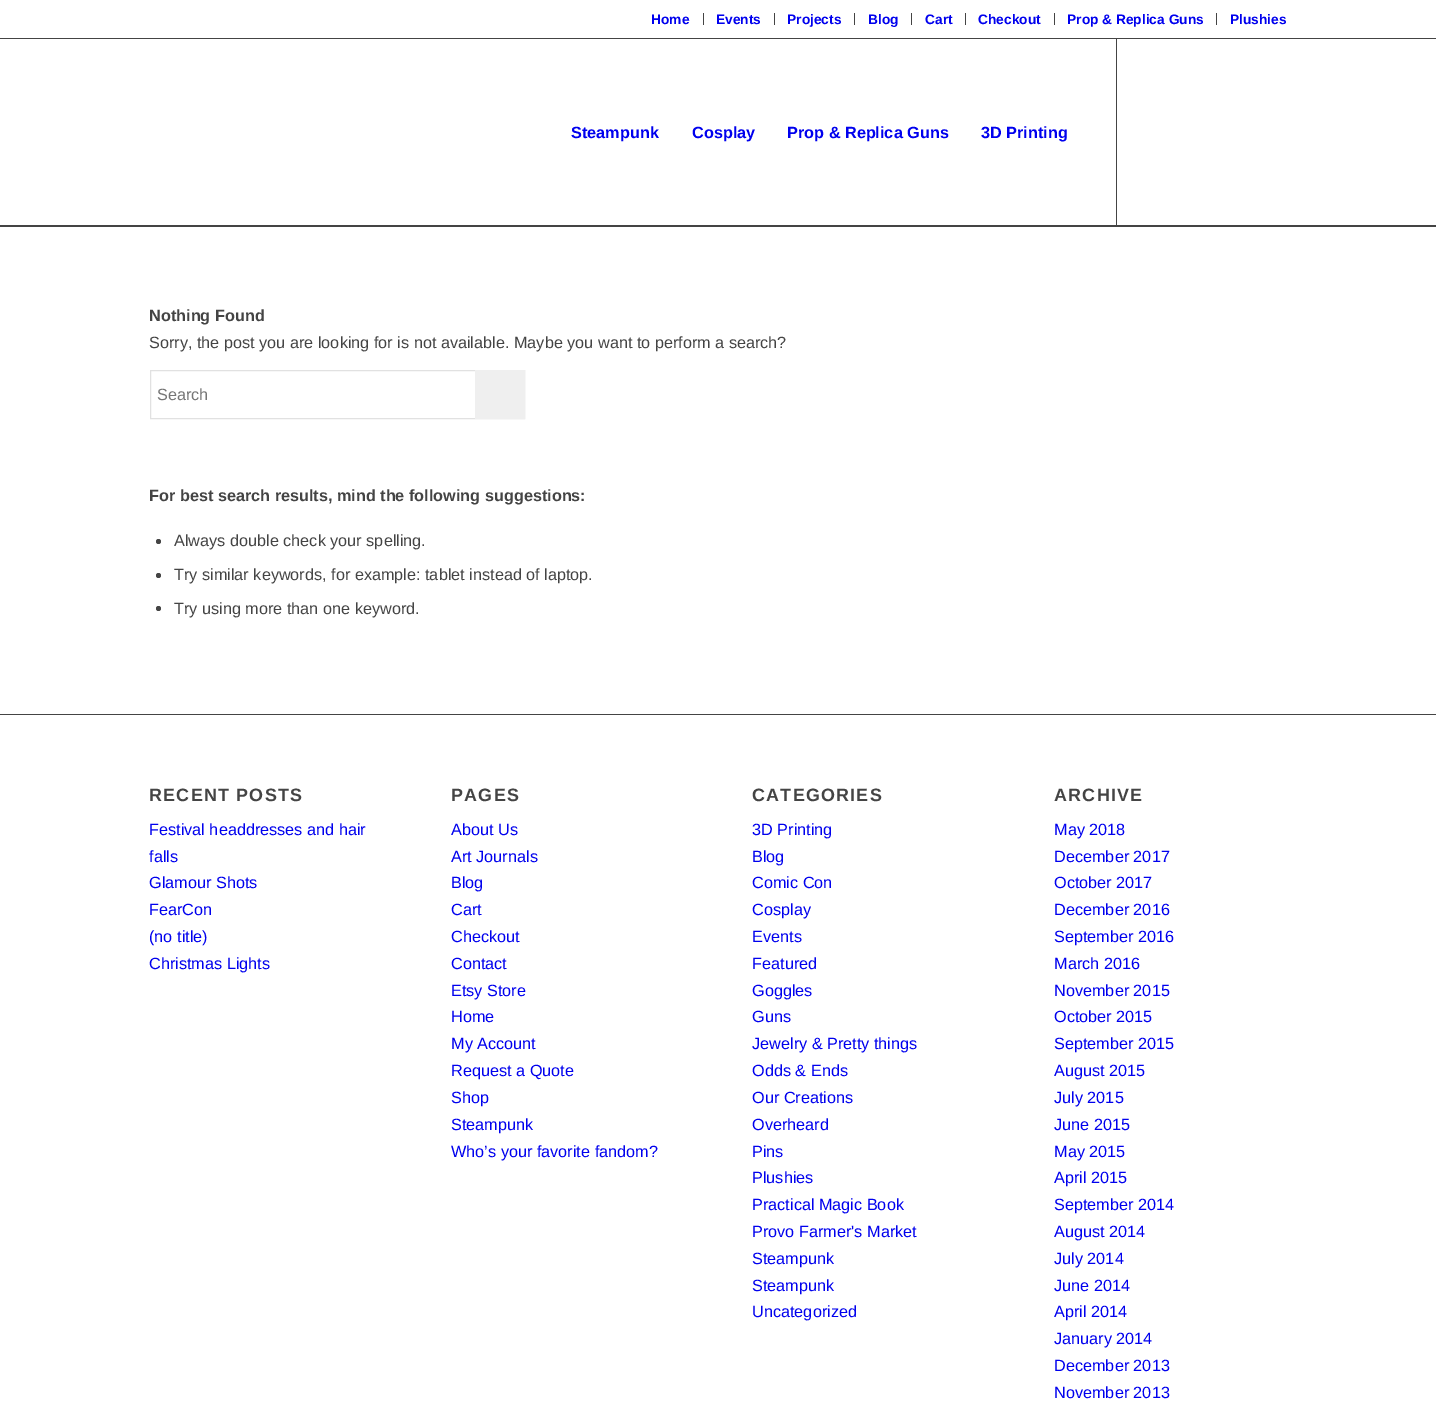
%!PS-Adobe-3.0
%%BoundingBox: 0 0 1436 1407
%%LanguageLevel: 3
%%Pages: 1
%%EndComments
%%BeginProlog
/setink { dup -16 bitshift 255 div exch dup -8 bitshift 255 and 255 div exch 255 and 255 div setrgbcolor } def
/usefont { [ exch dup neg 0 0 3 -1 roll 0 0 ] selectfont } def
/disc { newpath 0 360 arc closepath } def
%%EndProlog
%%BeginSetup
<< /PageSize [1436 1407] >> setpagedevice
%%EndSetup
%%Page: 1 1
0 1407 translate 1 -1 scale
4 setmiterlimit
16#FFFFFF setink
0 0 1436 1407 rectfill
16#444444 setink
703 13 1 12 rectfill
/LiberationSans-Bold 13.75 usefont
16#0000EE setink
651 24 moveto (Home) show
16#444444 setink
774 13 1 12 rectfill
16#0000EE setink
716 24 moveto (Events) show
16#444444 setink
854 13 1 12 rectfill
16#0000EE setink
787 24 moveto (Projects) show
16#444444 setink
911 13 1 12 rectfill
16#0000EE setink
868 24 moveto (Blog) show
16#444444 setink
965 13 1 12 rectfill
16#0000EE setink
925 24 moveto (Cart) show
16#444444 setink
1054 13 1 12 rectfill
16#0000EE setink
978 24 moveto (Checkout) show
16#444444 setink
1216 13 1 12 rectfill
16#0000EE setink
1067 24 moveto (Prop & Replica Guns) show
1230 24 moveto (Plushies) show
[
    [0 38 1436 1 16#444444]
    [0 225 1436 2 16#444444]
    [1116 39 1 187 16#444444]
] { aload pop setink rectfill } forall
/LiberationSans-Bold 16.25 usefont
16#0000EE setink
[
    [(Steampunk) 571 138]
    [(Cosplay) 692 138]
    [(Prop & Replica Guns) 787 138]
    [(3D Printing) 981 138]
] { aload pop moveto show } forall
16#444444 setink
149 321 moveto (Nothing Found) show
/LiberationSans-Regular 16.25 usefont
149 348 moveto (Sorry, the post you are looking for is not available. Maybe you want to perform a search?) show
16#E1E1E1 setink
150.5 370.5 374 48 rectstroke
16#757575 setink
157 400 moveto (Search) show
16#EFEFEF setink
475 370 50 49 rectfill
/LiberationSans-Bold 16.25 usefont
16#444444 setink
149 501 moveto (For best search results, mind the following suggestions:) show
158.5 541.5 2.5 disc fill
/LiberationSans-Regular 16.25 usefont
174 546 moveto (Always double check your spelling.) show
158.5 575.5 2.5 disc fill
174 580 moveto (Try similar keywords, for example: tablet instead of laptop.) show
158.5 608.5 2.5 disc fill
174 614 moveto (Try using more than one keyword.) show
0 714 1436 1 rectfill
/LiberationSans-Bold 17.9 usefont
149 801 moveto 1.25 0 (RECENT POSTS) ashow
/LiberationSans-Regular 16.25 usefont
16#0000EE setink
[
    [(Festival headdresses and hair) 149 835]
    [(falls) 149 862]
    [(Glamour Shots) 149 888]
    [(FearCon) 149 915]
    [(\(no title\)) 149 942]
    [(Christmas Lights) 149 969]
] { aload pop moveto show } forall
/LiberationSans-Bold 17.9 usefont
16#444444 setink
451 801 moveto 1.25 0 (PAGES) ashow
/LiberationSans-Regular 16.25 usefont
16#0000EE setink
[
    [(About Us) 451 835]
    [(Art Journals) 451 862]
    [(Blog) 451 888]
    [(Cart) 451 915]
    [(Checkout) 451 942]
    [(Contact) 451 969]
    [(Etsy Store) 451 996]
    [(Home) 451 1022]
    [(My Account) 451 1049]
    [(Request a Quote) 451 1076]
    [(Shop) 451 1103]
    [(Steampunk) 451 1130]
    [(Who’s your favorite fandom?) 451 1157]
] { aload pop moveto show } forall
/LiberationSans-Bold 17.9 usefont
16#444444 setink
752 801 moveto 1.25 0 (CATEGORIES) ashow
/LiberationSans-Regular 16.25 usefont
16#0000EE setink
[
    [(3D Printing) 752 835]
    [(Blog) 752 862]
    [(Comic Con) 752 888]
    [(Cosplay) 752 915]
    [(Events) 752 942]
    [(Featured) 752 969]
    [(Goggles) 752 996]
    [(Guns) 752 1022]
    [(Jewelry & Pretty things) 752 1049]
    [(Odds & Ends) 752 1076]
    [(Our Creations) 752 1103]
    [(Overheard) 752 1130]
    [(Pins) 752 1157]
    [(Plushies) 752 1183]
    [(Practical Magic Book) 752 1210]
    [(Provo Farmer's Market) 752 1237]
    [(Steampunk) 752 1264]
    [(Steampunk) 752 1291]
    [(Uncategorized) 752 1317]
] { aload pop moveto show } forall
/LiberationSans-Bold 17.9 usefont
16#444444 setink
1054 801 moveto 1.25 0 (ARCHIVE) ashow
/LiberationSans-Regular 16.25 usefont
16#0000EE setink
[
    [(May 2018) 1054 835]
    [(December 2017) 1054 862]
    [(October 2017) 1054 888]
    [(December 2016) 1054 915]
    [(September 2016) 1054 942]
    [(March 2016) 1054 969]
    [(November 2015) 1054 996]
    [(October 2015) 1054 1022]
    [(September 2015) 1054 1049]
    [(August 2015) 1054 1076]
    [(July 2015) 1054 1103]
    [(June 2015) 1054 1130]
    [(May 2015) 1054 1157]
    [(April 2015) 1054 1183]
    [(September 2014) 1054 1210]
    [(August 2014) 1054 1237]
    [(July 2014) 1054 1264]
    [(June 2014) 1054 1291]
    [(April 2014) 1054 1317]
    [(January 2014) 1054 1344]
    [(December 2013) 1054 1371]
    [(November 2013) 1054 1398]
] { aload pop moveto show } forall
showpage
%%EOF
